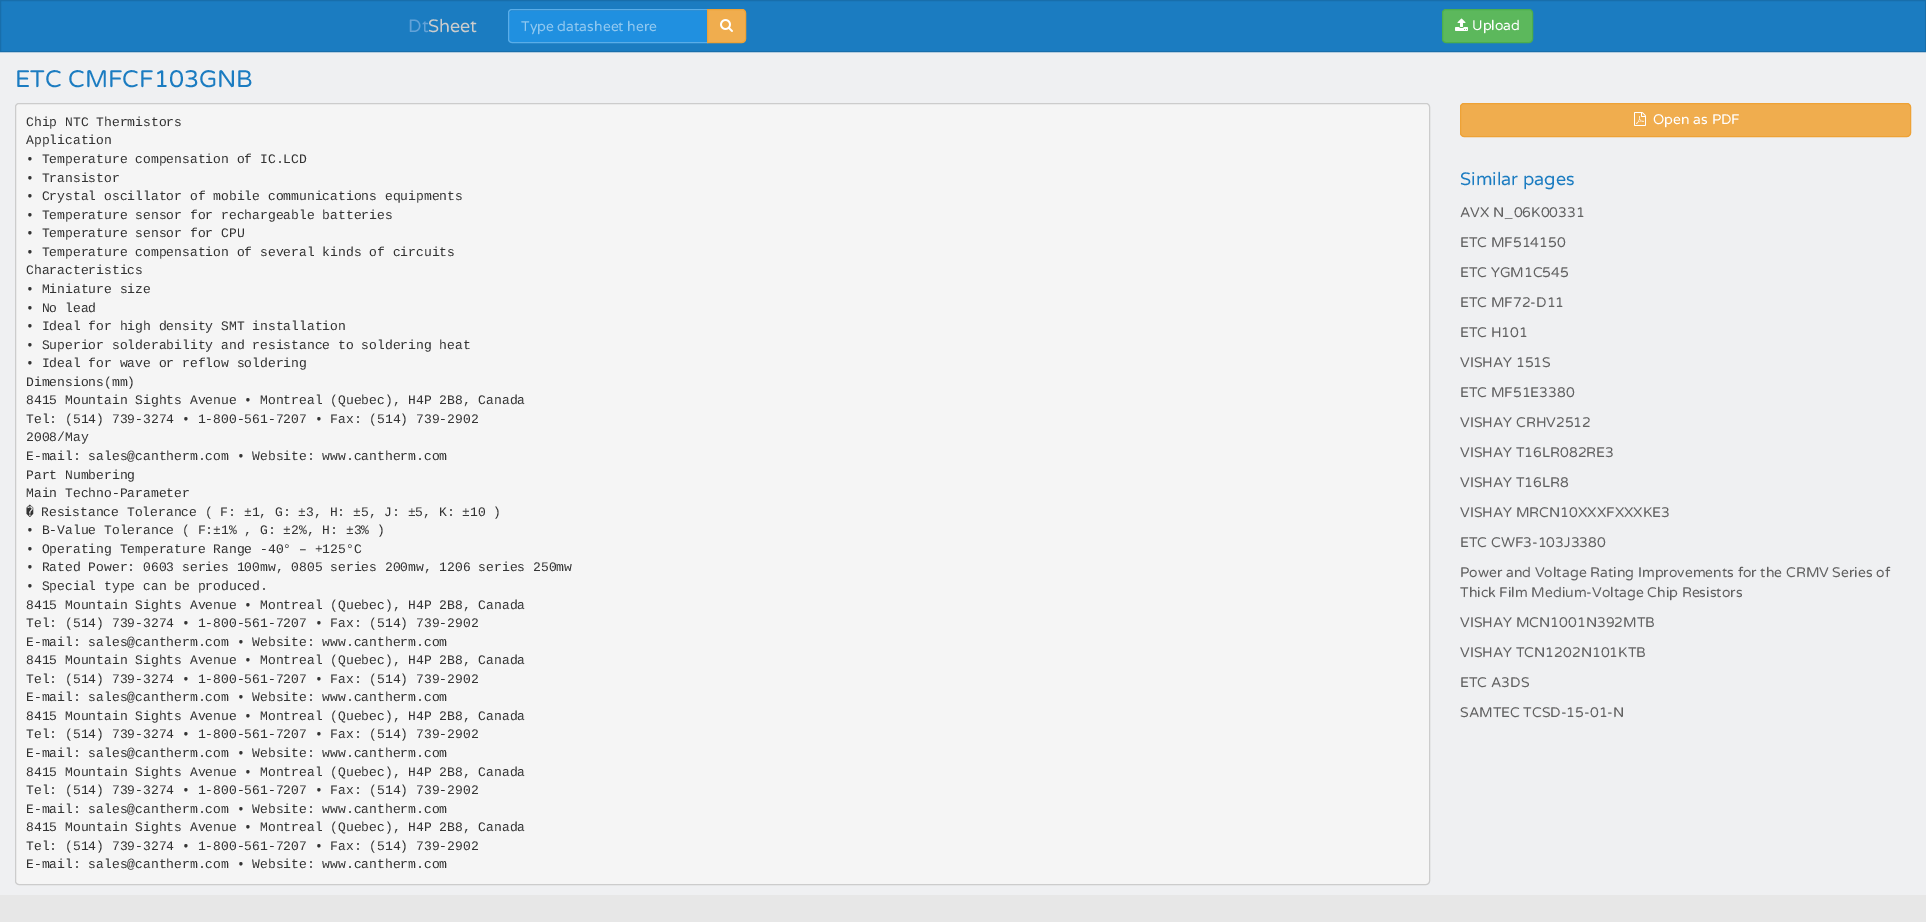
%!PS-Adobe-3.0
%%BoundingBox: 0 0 1926 922
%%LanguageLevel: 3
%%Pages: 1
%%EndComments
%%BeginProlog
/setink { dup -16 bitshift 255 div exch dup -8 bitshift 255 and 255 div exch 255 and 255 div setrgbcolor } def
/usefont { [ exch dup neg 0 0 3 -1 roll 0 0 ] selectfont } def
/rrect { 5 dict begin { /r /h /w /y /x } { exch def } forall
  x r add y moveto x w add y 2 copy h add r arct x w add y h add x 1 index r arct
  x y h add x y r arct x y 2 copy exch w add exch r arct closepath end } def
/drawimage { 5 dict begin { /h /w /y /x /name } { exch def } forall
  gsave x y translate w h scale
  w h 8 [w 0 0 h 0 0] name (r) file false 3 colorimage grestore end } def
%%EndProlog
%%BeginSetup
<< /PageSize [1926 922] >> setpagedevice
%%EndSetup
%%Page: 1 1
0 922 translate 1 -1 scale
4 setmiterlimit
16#EFF0F2 setink
0 0 1926 922 rectfill
16#1B7CC1 setink
0.5 0.5 moveto 1925.5 0.5 lineto 1925.5 51.5 lineto 0.5 51.5 lineto closepath gsave fill grestore
16#186EAB setink
stroke
/VarelaRound-Regular 18 usefont
16#62A2D8 setink
408 32 moveto (Dt) show
16#CCCCCC setink
428 32 moveto (Sheet) show
16#2090E0 setink
512 9 moveto 708 9 lineto 708 43 lineto 512 43 lineto 510 43 508 41 508 39 curveto 508 13 lineto 508 11 510 9 512 9 curveto closepath fill
16#1E85CF setink
512 11 moveto 707 11 lineto 707 10 lineto 512 10 lineto 510 10 509 12 509 14 curveto 509 12 510 11 512 11 curveto closepath fill
16#5AADE8 setink
512 9.5 moveto 707.5 9.5 lineto 707.5 42.5 lineto 512 42.5 lineto 510 42.5 508.5 41 508.5 39 curveto 508.5 13 lineto 508.5 11 510 9.5 512 9.5 curveto closepath stroke
/VarelaRound-Regular 14 usefont
16#90C8F0 setink
521 31 moveto (Type datasheet here) show
16#F0AD4E setink
707.5 9.5 moveto 742 9.5 lineto 744 9.5 745.5 11 745.5 13 curveto 745.5 39 lineto 745.5 41 744 42.5 742 42.5 curveto 707.5 42.5 lineto closepath gsave fill grestore
16#EEA236 setink
stroke
(img1.raw) 720 19 13 13 drawimage
16#5CB85C setink
1442.5 9.5 90 33 3.5 rrect gsave fill grestore
16#4CAE4C setink
stroke
(img2.raw) 1455 18 13 13 drawimage
16#FFFFFF setink
1472 30 moveto (Upload) show
/VarelaRound-Regular 24 usefont
16#1B7CC1 setink
15 87 moveto (ETC CMFCF103GNB) show
16#F5F5F5 setink
15.5 103.5 1414 781 3.5 rrect gsave fill grestore
16#CCCCCC setink
stroke
/LiberationMono-Regular 13 usefont
16#333333 setink
[
    [(Chip NTC Thermistors) 26 126]
    [(Application) 26 144]
    [(• Temperature compensation of IC.LCD) 26 163]
    [(• Transistor) 26 182]
    [(• Crystal oscillator of mobile communications equipments) 26 200]
    [(• Temperature sensor for rechargeable batteries) 26 219]
    [(• Temperature sensor for CPU) 26 237]
    [(• Temperature compensation of several kinds of circuits) 26 256]
    [(Characteristics) 26 274]
    [(• Miniature size) 26 293]
    [(• No lead) 26 312]
    [(• Ideal for high density SMT installation) 26 330]
    [(• Superior solderability and resistance to soldering heat) 26 349]
    [(• Ideal for wave or reflow soldering) 26 367]
    [(Dimensions\(mm\)) 26 386]
    [(8415 Mountain Sights Avenue • Montreal \(Quebec\), H4P 2B8, Canada) 26 404]
    [(Tel: \(514\) 739-3274 • 1-800-561-7207 • Fax: \(514\) 739-2902) 26 423]
    [(2008/May) 26 441]
    [(E-mail: sales@cantherm.com • Website: www.cantherm.com) 26 460]
    [(Part Numbering) 26 479]
    [(Main Techno-Parameter) 26 497]
] { aload pop moveto show } forall
/DejaVuSansMono-Regular 13 usefont
26 516 moveto (�) show
/LiberationMono-Regular 13 usefont
[
    [(Resistance Tolerance \( F: ±1, G: ±3, H: ±5, J: ±5, K: ±10 \)) 41 516]
    [(• B-Value Tolerance \( F:±1% , G: ±2%, H: ±3% \)) 26 534]
    [(• Operating Temperature Range -40° – +125°C) 26 553]
    [(• Rated Power: 0603 series 100mw, 0805 series 200mw, 1206 series 250mw) 26 571]
    [(• Special type can be produced.) 26 590]
    [(8415 Mountain Sights Avenue • Montreal \(Quebec\), H4P 2B8, Canada) 26 609]
    [(Tel: \(514\) 739-3274 • 1-800-561-7207 • Fax: \(514\) 739-2902) 26 627]
    [(E-mail: sales@cantherm.com • Website: www.cantherm.com) 26 646]
    [(8415 Mountain Sights Avenue • Montreal \(Quebec\), H4P 2B8, Canada) 26 664]
    [(Tel: \(514\) 739-3274 • 1-800-561-7207 • Fax: \(514\) 739-2902) 26 683]
    [(E-mail: sales@cantherm.com • Website: www.cantherm.com) 26 701]
    [(8415 Mountain Sights Avenue • Montreal \(Quebec\), H4P 2B8, Canada) 26 720]
    [(Tel: \(514\) 739-3274 • 1-800-561-7207 • Fax: \(514\) 739-2902) 26 738]
    [(E-mail: sales@cantherm.com • Website: www.cantherm.com) 26 757]
    [(8415 Mountain Sights Avenue • Montreal \(Quebec\), H4P 2B8, Canada) 26 776]
    [(Tel: \(514\) 739-3274 • 1-800-561-7207 • Fax: \(514\) 739-2902) 26 794]
    [(E-mail: sales@cantherm.com • Website: www.cantherm.com) 26 813]
    [(8415 Mountain Sights Avenue • Montreal \(Quebec\), H4P 2B8, Canada) 26 831]
    [(Tel: \(514\) 739-3274 • 1-800-561-7207 • Fax: \(514\) 739-2902) 26 850]
    [(E-mail: sales@cantherm.com • Website: www.cantherm.com) 26 868]
] { aload pop moveto show } forall
16#F0AD4E setink
1460.5 103.5 450 33 3.5 rrect gsave fill grestore
16#EEA236 setink
stroke
(img3.raw) 1634 112 12 14 drawimage
/VarelaRound-Regular 14 usefont
16#FFFFFF setink
1653 124 moveto (Open as PDF) show
/VarelaRound-Regular 18 usefont
16#1B7CC1 setink
1460 185 moveto (Similar pages) show
/VarelaRound-Regular 14 usefont
16#616161 setink
[
    [(AVX N_06K00331) 1460 217]
    [(ETC MF514150) 1460 247]
    [(ETC YGM1C545) 1460 277]
    [(ETC MF72-D11) 1460 307]
    [(ETC H101) 1460 337]
    [(VISHAY 151S) 1460 367]
    [(ETC MF51E3380) 1460 397]
    [(VISHAY CRHV2512) 1460 427]
    [(VISHAY T16LR082RE3) 1460 457]
    [(VISHAY T16LR8) 1460 487]
    [(VISHAY MRCN10XXXFXXXKE3) 1460 517]
    [(ETC CWF3-103J3380) 1460 547]
    [(Power and Voltage Rating Improvements for the CRMV Series of) 1460 577]
    [(Thick Film Medium-Voltage Chip Resistors) 1460 597]
    [(VISHAY MCN1001N392MTB) 1460 627]
    [(VISHAY TCN1202N101KTB) 1460 657]
    [(ETC A3DS) 1460 687]
    [(SAMTEC TCSD-15-01-N) 1460 717]
] { aload pop moveto show } forall
16#E7E7E7 setink
0 895 1926 27 rectfill
showpage
%%EOF
